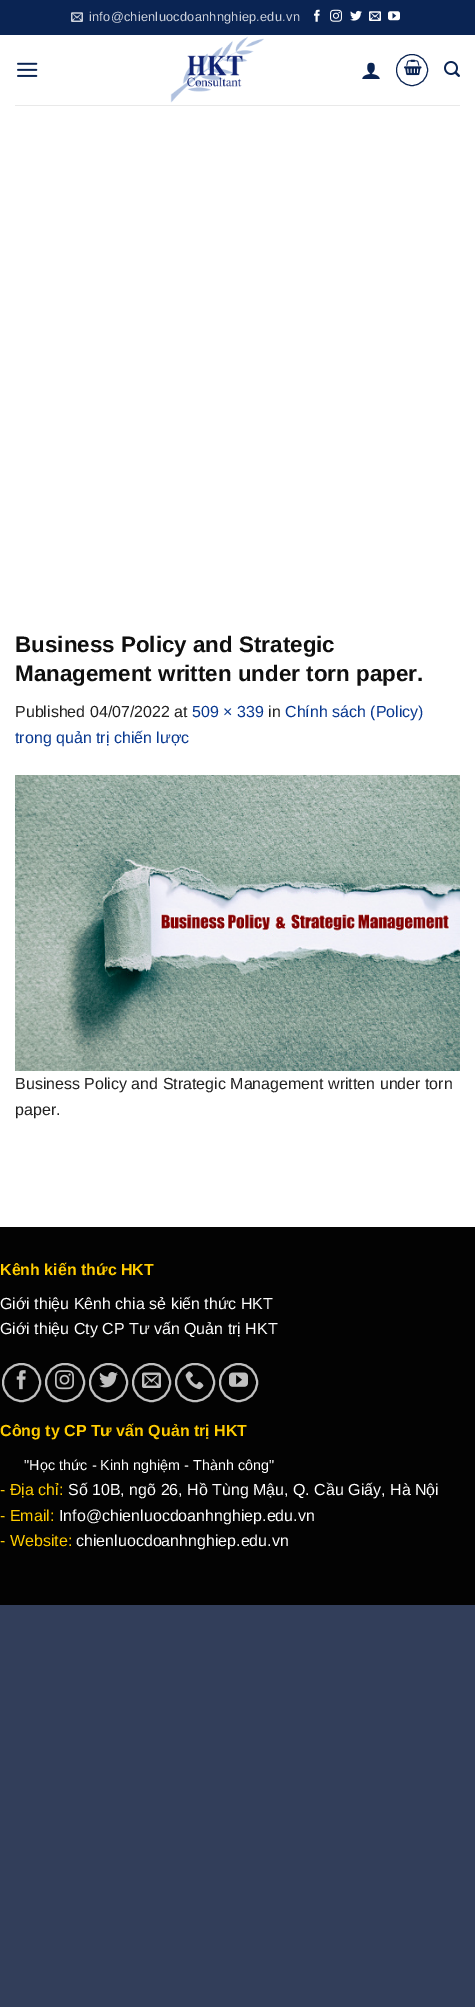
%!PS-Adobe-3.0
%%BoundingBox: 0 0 475 2007
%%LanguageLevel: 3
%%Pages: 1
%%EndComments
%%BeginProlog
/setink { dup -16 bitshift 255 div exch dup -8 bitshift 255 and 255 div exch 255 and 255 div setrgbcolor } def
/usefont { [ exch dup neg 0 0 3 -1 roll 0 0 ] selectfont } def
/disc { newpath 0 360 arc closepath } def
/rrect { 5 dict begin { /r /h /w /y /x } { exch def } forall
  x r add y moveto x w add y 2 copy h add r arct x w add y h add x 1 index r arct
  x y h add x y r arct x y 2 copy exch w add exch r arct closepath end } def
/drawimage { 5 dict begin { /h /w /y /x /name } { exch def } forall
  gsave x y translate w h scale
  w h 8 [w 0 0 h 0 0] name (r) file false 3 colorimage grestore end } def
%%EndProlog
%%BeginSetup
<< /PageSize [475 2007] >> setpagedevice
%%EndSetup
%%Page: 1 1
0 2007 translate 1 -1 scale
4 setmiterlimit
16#323E5A setink
0 0 475 2007 rectfill
16#FFFFFF setink
0 35 475 1192 rectfill
16#0A2453 setink
0 0 475 35 rectfill
(img1.raw) 71 12 12 10 drawimage
/LiberationSans-Regular 12.75 usefont
16#CED3DD setink
89 21 moveto 0.25 0 (info@chienluocdoanhnghiep.edu.vn) ashow
(img2.raw) 314 9 6 13 drawimage
(img3.raw) 330 9 12 13 drawimage
(img4.raw) 350 10 12 11 drawimage
(img5.raw) 369 11 12 10 drawimage
(img6.raw) 388 11 12 10 drawimage
(img7.raw) 17 62 21 15 drawimage
(img8.raw) 170 36 94 67 drawimage
(img9.raw) 362 62 18 17 drawimage
16#0A2453 setink
412 70 15.5 disc stroke
(img10.raw) 404 59 18 17 drawimage
(img11.raw) 444 61 16 16 drawimage
16#E9E9E9 setink
15 105 445 1 rectfill
/LiberationSans-Bold 22.4 usefont
16#0F0F0F setink
15 652 moveto (Business Policy and Strategic) show
15 681 moveto (Management written under torn paper.) show
/LiberationSans-Regular 16 usefont
16#212121 setink
15 717 moveto (Published 04/07/2022 at) show
16#083890 setink
192 717 moveto (509 × 339) show
16#212121 setink
268 717 moveto (in) show
16#083890 setink
285 717 moveto (Chính sách \(Policy\)) show
15 743 moveto (trong quản trị chiến lược) show
(img12.raw) 15 775 445 296 drawimage
16#212121 setink
15 1089 moveto (Business Policy and Strategic Management written under torn) show
15 1115 moveto (paper.) show
16#030303 setink
0 1227 475 378 rectfill
/LiberationSans-Bold 16 usefont
16#FFCC00 setink
0 1275 moveto (Kênh kiến thức HKT) show
/LiberationSans-Regular 16 usefont
16#FFFFFF setink
0 1309 moveto (Giới thiệu Kênh chia sẻ kiến thức HKT) show
0 1334 moveto (Giới thiệu Cty CP Tư vấn Quản trị HKT) show
16#C0C0C0 setink
2 setlinewidth
21.5 1382.5 18.5 disc stroke
(img13.raw) 16 1370 10 20 drawimage
46 1364 38 37 18.5 rrect stroke
(img14.raw) 55 1370 19 20 drawimage
108.5 1382.5 18.5 disc stroke
(img15.raw) 99 1372 19 16 drawimage
151.5 1382.5 18.5 disc stroke
(img16.raw) 142 1372 19 16 drawimage
176 1364 38 37 18.5 rrect stroke
(img17.raw) 185 1371 19 19 drawimage
238.5 1382.5 18.5 disc stroke
(img18.raw) 229 1372 19 15 drawimage
/LiberationSans-Bold 16 usefont
16#FFCC00 setink
0 1436 moveto (Công ty CP Tư vấn Quản trị HKT) show
/LiberationSans-Regular 14.4 usefont
16#FFFFFF setink
24 1470 moveto ("Học thức - Kinh nghiệm - Thành công") show
/LiberationSans-Regular 16 usefont
16#FFCC00 setink
0 1495 moveto (- Địa chỉ:) show
16#FFFFFF setink
68 1495 moveto (Số 10B, ngõ 26, Hồ Tùng Mậu, Q. Cầu Giấy, Hà Nội) show
16#FFCC00 setink
0 1521 moveto (- Email:) show
16#FFFFFF setink
59 1521 moveto (Info@chienluocdoanhnghiep.edu.vn) show
16#FFCC00 setink
0 1546 moveto (- Website:) show
16#FFFFFF setink
76 1546 moveto (chienluocdoanhnghiep.edu.vn) show
showpage
%%EOF
